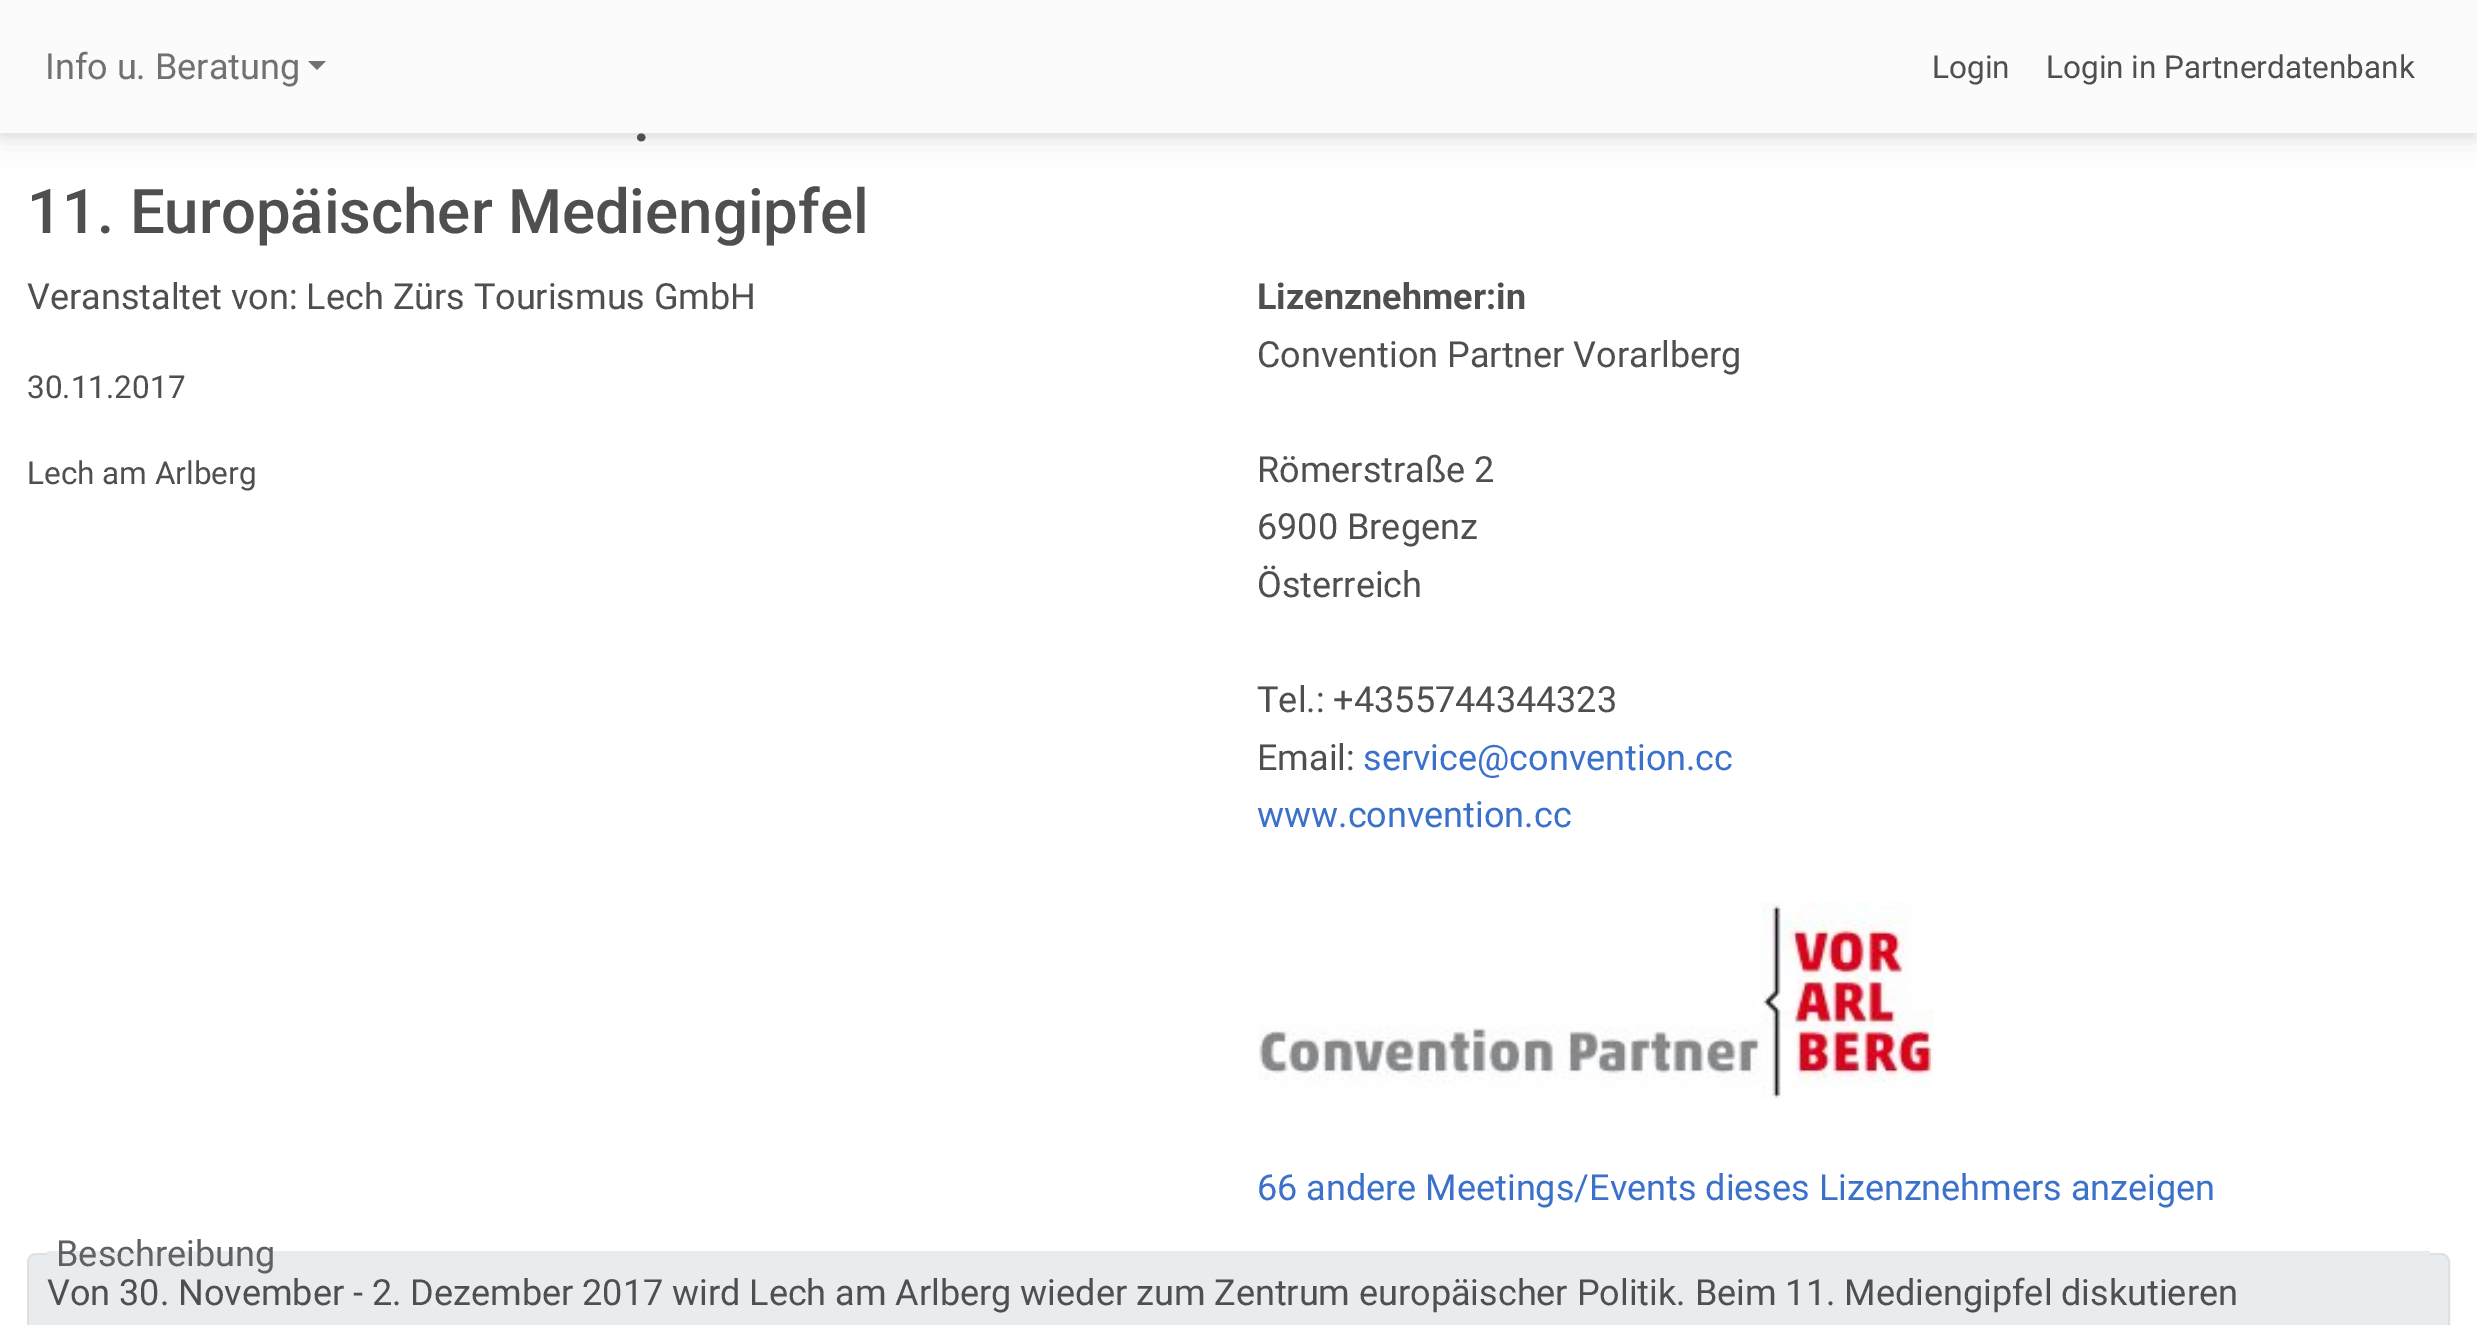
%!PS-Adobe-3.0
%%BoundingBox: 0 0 2477 1325
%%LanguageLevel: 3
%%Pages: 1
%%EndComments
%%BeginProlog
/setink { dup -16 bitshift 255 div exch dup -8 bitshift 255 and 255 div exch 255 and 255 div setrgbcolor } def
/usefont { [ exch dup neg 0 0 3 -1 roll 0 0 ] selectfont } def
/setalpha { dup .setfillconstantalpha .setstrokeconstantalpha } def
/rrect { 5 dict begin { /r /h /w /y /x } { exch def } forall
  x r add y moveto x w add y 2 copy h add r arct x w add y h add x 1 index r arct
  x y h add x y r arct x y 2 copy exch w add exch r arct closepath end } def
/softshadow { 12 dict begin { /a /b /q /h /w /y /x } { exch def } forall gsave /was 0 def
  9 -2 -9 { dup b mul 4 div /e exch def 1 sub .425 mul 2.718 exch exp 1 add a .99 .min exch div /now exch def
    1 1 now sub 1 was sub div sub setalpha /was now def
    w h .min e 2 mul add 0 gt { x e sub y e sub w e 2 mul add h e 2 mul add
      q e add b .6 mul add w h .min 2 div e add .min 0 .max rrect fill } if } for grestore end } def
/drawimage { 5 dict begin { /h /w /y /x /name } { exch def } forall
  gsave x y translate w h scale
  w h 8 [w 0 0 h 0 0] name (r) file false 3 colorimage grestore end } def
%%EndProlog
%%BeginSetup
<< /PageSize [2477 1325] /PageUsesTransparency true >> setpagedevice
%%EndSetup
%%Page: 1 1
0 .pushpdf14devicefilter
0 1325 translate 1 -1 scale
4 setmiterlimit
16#FFFFFF setink
0 0 2477 1325 rectfill
16#000000 setink
0 5 2477 132 0 4.5 0.05 softshadow
0 9 2477 133 0 13.5 0.07 softshadow
16#FBFBFB setink
0 0 2477 133 rectfill
/Roboto-Regular 36 usefont
16#717171 setink
45 79 moveto (Info u. Beratung) show
308 61 moveto 326 61 lineto 317 70 lineto closepath fill
/Roboto-Regular 31.5 usefont
16#4F4F4F setink
1932 78 moveto (Login) show
2046 78 moveto (Login in Partnerdatenbank) show
/Roboto-Medium 61.7 usefont
633 141 moveto (.) show
27 233 moveto (11. Europäischer Mediengipfel) show
/Roboto-Regular 36 usefont
27 309 moveto (Veranstaltet von: Lech Zürs Tourismus GmbH) show
/Roboto-Regular 31.5 usefont
27 398 moveto (30.11.2017) show
27 484 moveto (Lech am Arlberg) show
/Roboto-Bold 36 usefont
1257 309 moveto (Lizenznehmer:in) show
/Roboto-Regular 36 usefont
[
    [(Convention Partner Vorarlberg) 1257 367]
    [(Römerstraße 2) 1257 482]
    [(6900 Bregenz) 1257 539]
    [(Österreich) 1257 597]
    [(Tel.: +4355744344323) 1257 712]
    [(Email:) 1257 770]
] { aload pop moveto show } forall
16#3B71CA setink
1363 770 moveto (service@convention.cc) show
1257 827 moveto (www.convention.cc) show
(img1.raw) 1258 902 675 198 drawimage
1257 1200 moveto (66 andere Meetings/Events dieses Lizenznehmers anzeigen) show
16#E9ECEF setink
28 1254 2421 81 8 rrect gsave fill grestore
16#E0E0E0 setink
2 setlinewidth
stroke
16#E9ECEF setink
47 1251 2383 4 rectfill
16#606162 setink
56 1266 moveto (Beschreibung) show
16#4F4F4F setink
47 1305 moveto (Von 30. November - 2. Dezember 2017 wird Lech am Arlberg wieder zum Zentrum europäischer Politik. Beim 11. Mediengipfel diskutieren) show
.poppdf14devicefilter showpage
%%EOF
